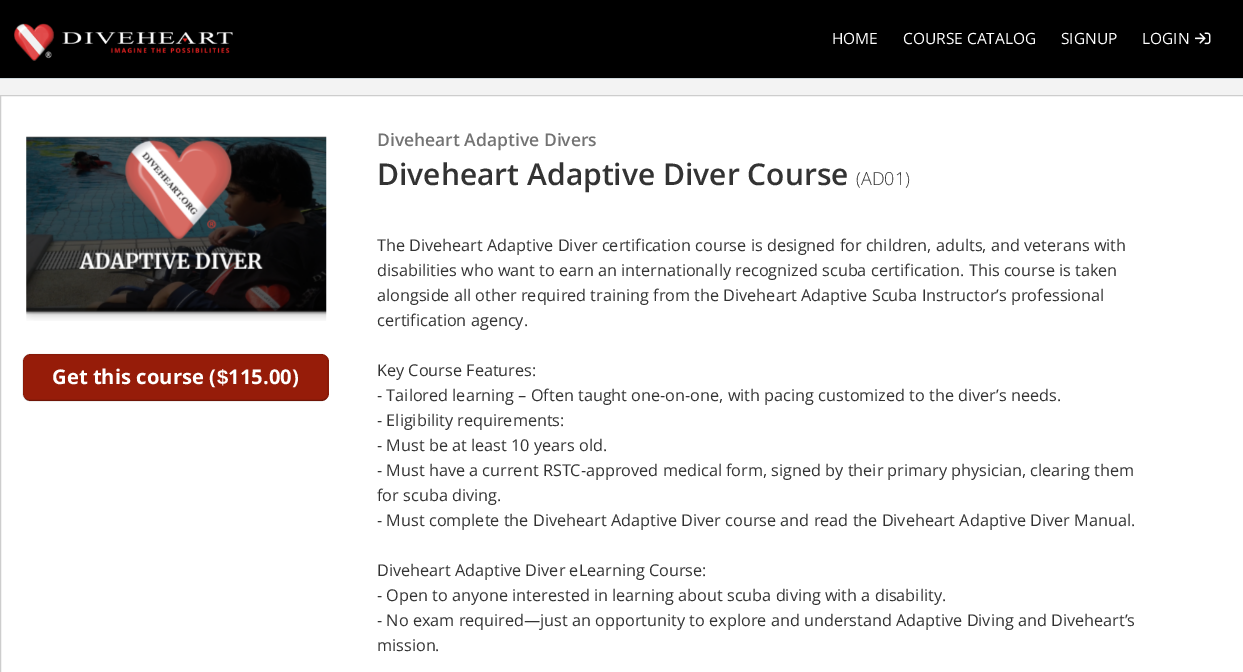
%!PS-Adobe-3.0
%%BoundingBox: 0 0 1243 672
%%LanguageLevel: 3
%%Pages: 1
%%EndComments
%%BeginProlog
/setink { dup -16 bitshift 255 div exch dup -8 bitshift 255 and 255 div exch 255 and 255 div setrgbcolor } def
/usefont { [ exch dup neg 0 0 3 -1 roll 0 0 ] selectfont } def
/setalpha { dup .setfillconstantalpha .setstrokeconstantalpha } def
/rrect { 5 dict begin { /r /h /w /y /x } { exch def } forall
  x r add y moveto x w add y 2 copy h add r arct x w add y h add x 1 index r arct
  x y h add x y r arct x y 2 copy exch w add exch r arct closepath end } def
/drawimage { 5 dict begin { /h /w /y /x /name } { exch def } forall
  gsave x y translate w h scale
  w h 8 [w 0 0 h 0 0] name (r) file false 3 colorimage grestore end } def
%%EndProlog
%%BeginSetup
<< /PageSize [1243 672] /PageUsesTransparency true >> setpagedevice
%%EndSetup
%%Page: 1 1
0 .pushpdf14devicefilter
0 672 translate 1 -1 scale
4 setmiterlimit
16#F3F3F3 setink
0 0 1243 672 rectfill
16#000000 setink
0 0 1243 78 rectfill
16#CFD8DC setink
0 78 1243 1 rectfill
(img1.raw) 14 23 219 38 drawimage
/OpenSans-Regular 15.5 usefont
16#FFFFFF setink
[
    [(HOME) 832 44]
    [(COURSE CATALOG) 903 44]
    [(SIGNUP) 1061 44]
    [(LOGIN) 1142 44]
] { aload pop moveto show } forall
(img2.raw) 1195 32 16 13 drawimage
0.5 95.5 moveto 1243.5 95.5 lineto 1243.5 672.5 lineto 0.5 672.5 lineto closepath gsave fill grestore
16#CDCDCD setink
stroke
(img3.raw) 26 136 301 185 drawimage
16#961C09 setink
23 354 306 47 8 rrect fill
0.25 setalpha
16#000000 setink
1.2 setlinewidth
326 398.5 moveto 325 400 323 400.5 321 400.5 curveto 30 400.5 lineto 28 400.5 26.5 400 25 398.5 curveto stroke
0.1 setalpha
25 398.5 moveto 24 397.5 23 395.5 23 394 curveto 23 361 lineto 23 359.5 24 357.5 25 356.5 curveto 26.5 355 28 354.5 30 354.5 curveto 321 354.5 lineto 323 354.5 325 355 326 356.5 curveto 327.5 357.5 328 359.5 328 361 curveto 328 394 lineto 328 395.5 327.5 397.5 326 398.5 curveto stroke
/OpenSans-Bold 20.25 usefont
1 setalpha
16#FFFFFF setink
52 384 moveto (Get this course \() show
/LiberationSans-Bold 20.25 usefont
217 384 moveto ($) show
/OpenSans-Bold 20.25 usefont
228 384 moveto (115.00\)) show
/OpenSans-SemiBold 17.5 usefont
16#737373 setink
377 146 moveto (Diveheart Adaptive Divers) show
/OpenSans-SemiBold 30 usefont
16#333333 setink
377 185 moveto (Diveheart Adaptive Diver Course) show
/OpenSans-Light 18 usefont
856 185 moveto (\(AD01\)) show
/OpenSans-Regular 16.25 usefont
[
    [(The Diveheart Adaptive Diver certification course is designed for children, adults, and veterans with) 377 251]
    [(disabilities who want to earn an internationally recognized scuba certification. This course is taken) 377 276]
    [(alongside all other required training from the Diveheart Adaptive Scuba Instructor’s professional) 377 301]
    [(certification agency.) 377 326]
    [(Key Course Features:) 377 376]
    [(- Tailored learning – Often taught one-on-one, with pacing customized to the diver’s needs.) 377 401]
    [(- Eligibility requirements:) 377 426]
    [(- Must be at least 10 years old.) 377 451]
    [(- Must have a current RSTC-approved medical form, signed by their primary physician, clearing them) 377 476]
    [(for scuba diving.) 377 501]
    [(- Must complete the Diveheart Adaptive Diver course and read the Diveheart Adaptive Diver Manual.) 377 526]
    [(Diveheart Adaptive Diver eLearning Course:) 377 576]
    [(- Open to anyone interested in learning about scuba diving with a disability.) 377 601]
    [(- No exam required—just an opportunity to explore and understand Adaptive Diving and Diveheart’s) 377 626]
    [(mission.) 377 651]
] { aload pop moveto show } forall
.poppdf14devicefilter showpage
%%EOF
